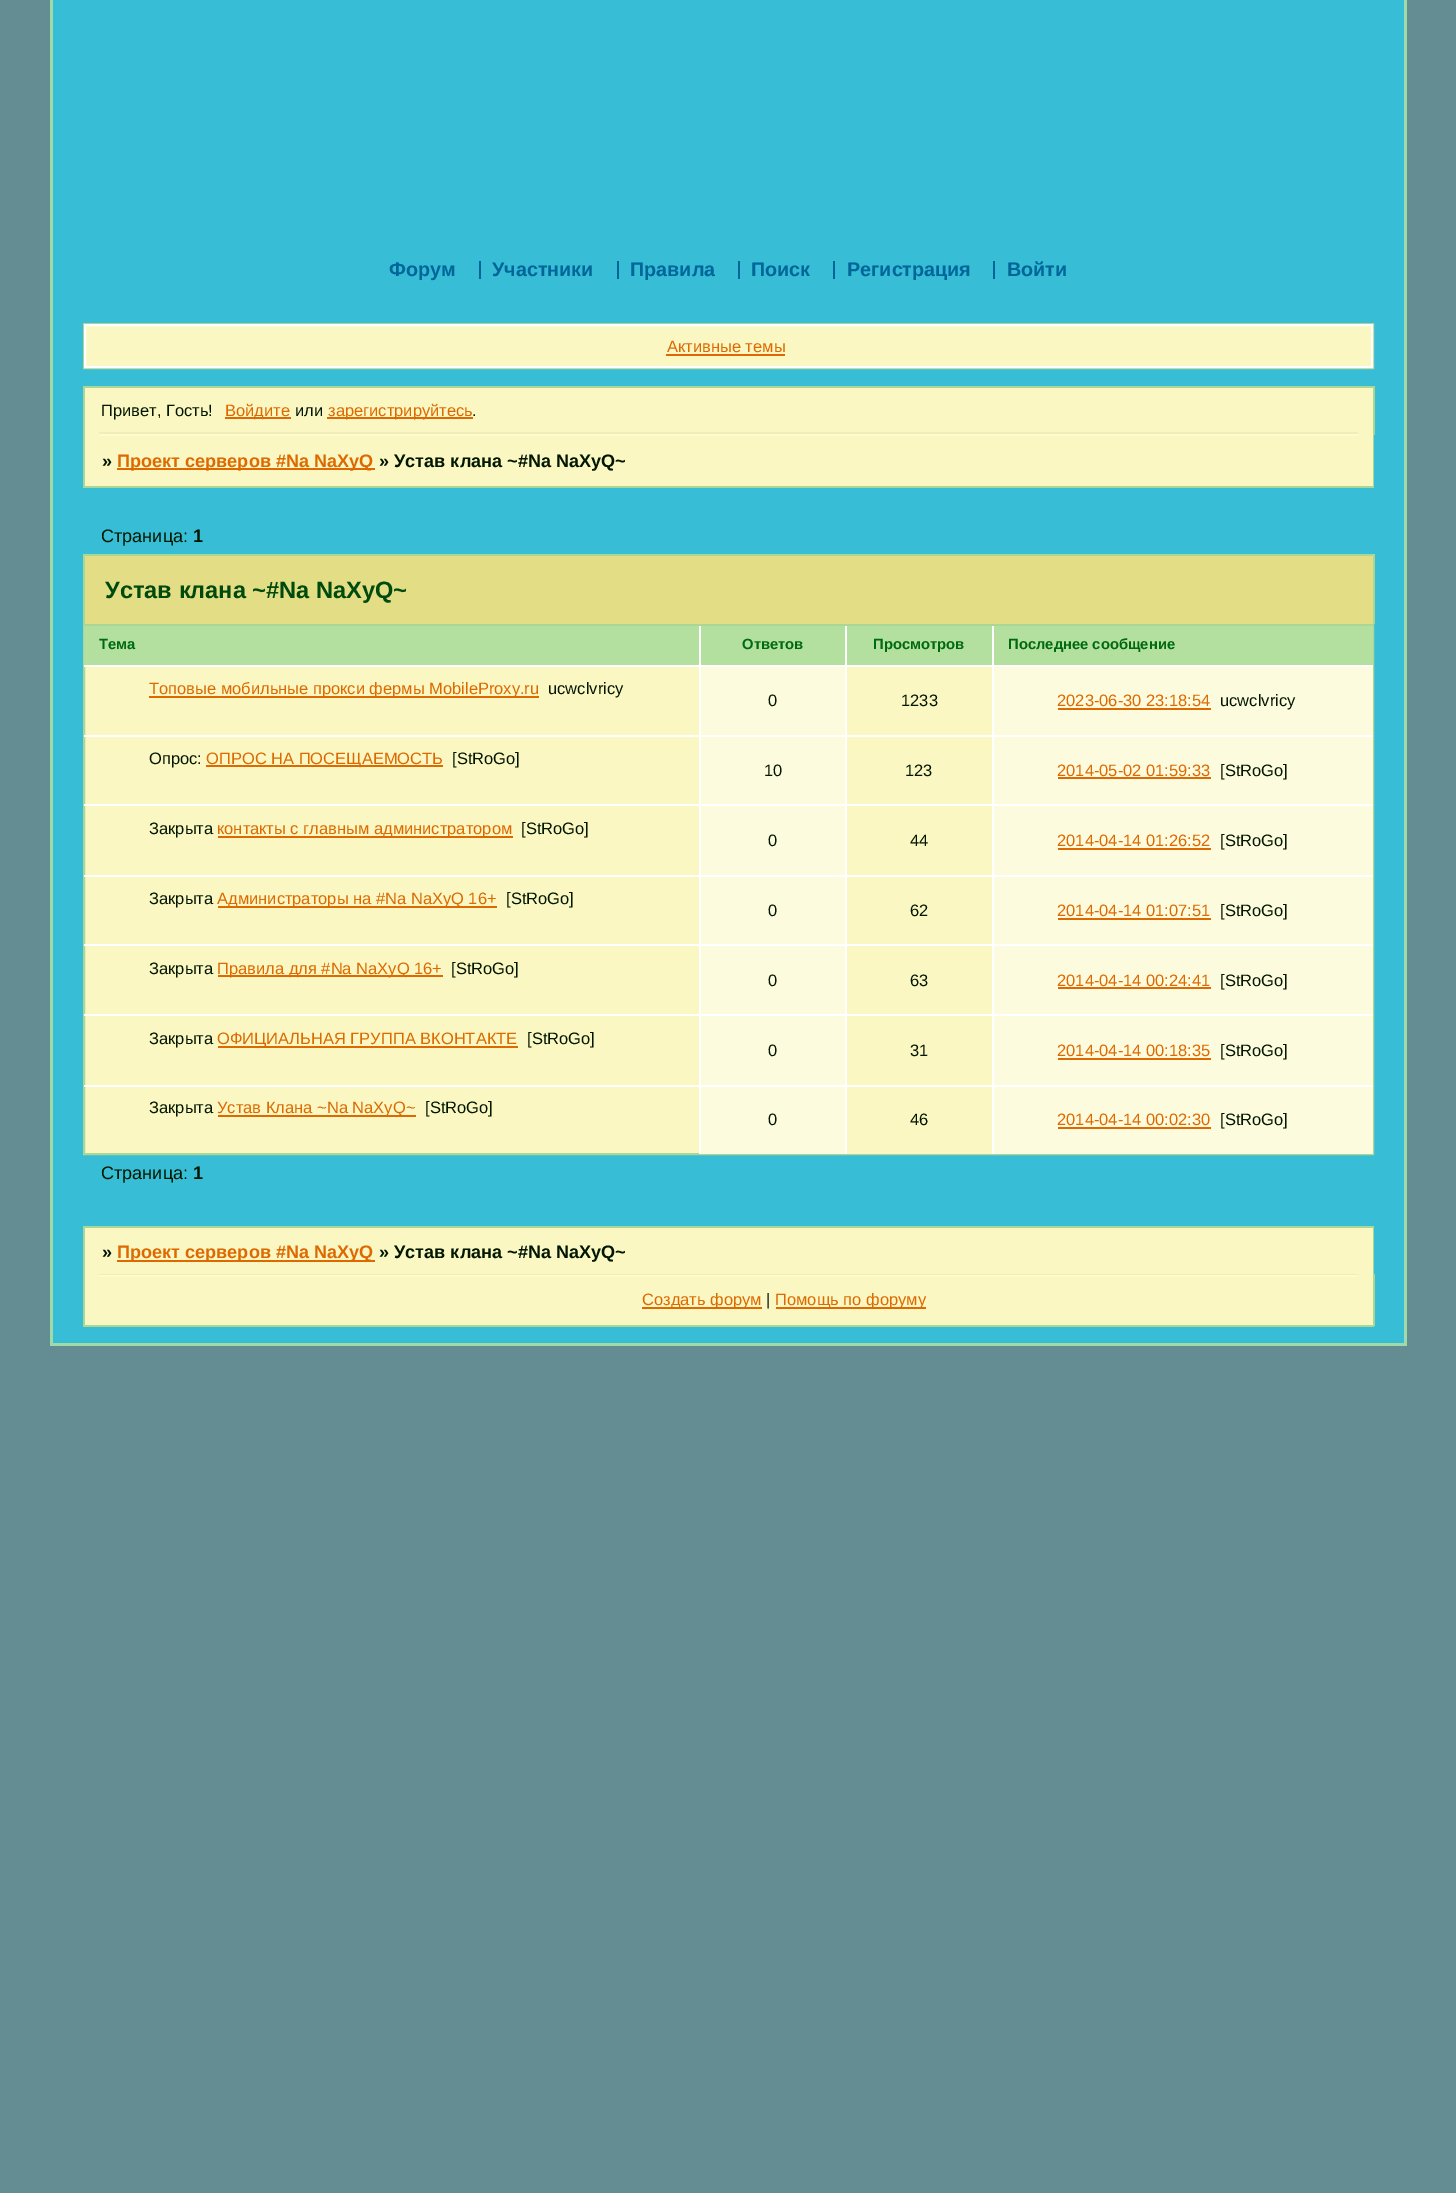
%!PS-Adobe-3.0
%%BoundingBox: 0 0 1456 2193
%%LanguageLevel: 3
%%Pages: 1
%%EndComments
%%BeginProlog
/setink { dup -16 bitshift 255 div exch dup -8 bitshift 255 and 255 div exch 255 and 255 div setrgbcolor } def
/usefont { [ exch dup neg 0 0 3 -1 roll 0 0 ] selectfont } def
%%EndProlog
%%BeginSetup
<< /PageSize [1456 2193] >> setpagedevice
%%EndSetup
%%Page: 1 1
0 2193 translate 1 -1 scale
4 setmiterlimit
16#648C93 setink
0 0 1456 2193 rectfill
[
    [53 0 1351 1343 16#37BDD6]
    [1404 0 3 1346 16#9FDAA8]
    [50 1343 1357 3 16#9FDAA8]
    [50 0 3 1346 16#9FDAA8]
] { aload pop setink rectfill } forall
/LiberationSans-Bold 19.75 usefont
16#006699 setink
389 276 moveto (Форум) show
492 276 moveto (Участники) show
479 261 2 18 rectfill
630 276 moveto (Правила) show
617 261 2 18 rectfill
751 276 moveto (Поиск) show
738 261 2 18 rectfill
847 276 moveto (Регистрация) show
833 261 2 18 rectfill
1007 276 moveto (Войти) show
993 261 2 18 rectfill
16#AAD696 setink
2 setlinewidth
84 324 1289 44 rectstroke
16#FAF7C3 setink
85 325 moveto 1372 325 lineto 1372 367 lineto 85 367 lineto closepath gsave fill grestore
16#FFFFFF setink
stroke
/LiberationSans-Regular 16.5 usefont
16#DD6900 setink
667 352 moveto (Активные темы) show
[
    [666 354 119 2 16#DD6900]
    [85 388 1288 98 16#FAF7C3]
    [83 386 1291 2 16#AAD696]
    [1373 386 2 49 16#AAD696]
    [83 386 2 49 16#AAD696]
] { aload pop setink rectfill } forall
16#031600 setink
101 416 moveto (Привет, Гость!) show
16#DD6900 setink
225 417 66 2 rectfill
225 416 moveto (Войдите) show
16#031600 setink
295 416 moveto (или) show
16#DD6900 setink
327 417 146 2 rectfill
328 416 moveto (зарегистрируйтесь) show
16#031600 setink
472 416 moveto (.) show
[
    [99 432 1259 2 16#F0EDBB]
    [99 434 1259 2 16#FFFCCC]
    [1373 432 1 56 16#AAD696]
    [83 486 1291 2 16#AAD696]
    [83 432 2 56 16#AAD696]
] { aload pop setink rectfill } forall
/LiberationSans-Bold 18.1 usefont
16#031600 setink
102 467 moveto (») show
16#DD6900 setink
117 468 258 2 rectfill
117 467 moveto (Проект серверов #Na NaXyQ) show
16#031600 setink
379 467 moveto (» Устав клана ~#Na NaXyQ~) show
/LiberationSans-Regular 18.1 usefont
101 542 moveto (Страница:) show
/LiberationSans-Bold 18.1 usefont
193 542 moveto (1) show
[
    [85 556 1288 68 16#E3DE86]
    [83 554 1291 2 16#AAD696]
    [1373 554 2 70 16#AAD696]
    [83 554 2 70 16#AAD696]
] { aload pop setink rectfill } forall
/LiberationSans-Bold 23.6 usefont
16#004B0C setink
105 598 moveto (Устав клана ~#Na NaXyQ~) show
16#FAF7C3 setink
85 667 907 486 rectfill
16#AAD696 setink
84 625 1289 529 rectstroke
16#B3E09F setink
84 626 615 39 rectfill
/LiberationSans-Bold 14.8 usefont
16#006A11 setink
99 649 moveto (Тема) show
16#B3E09F setink
701 626 144 39 rectfill
16#FFFFFF setink
699 626 2 39 rectfill
16#006A11 setink
742 649 moveto (Ответов) show
16#B3E09F setink
847 626 145 39 rectfill
16#FFFFFF setink
845 626 2 39 rectfill
16#006A11 setink
873 649 moveto (Просмотров) show
[
    [994 626 379 39 16#B3E09F]
    [84 665 1289 2 16#FFFFFF]
    [84 735 1289 2 16#FFFFFF]
    [84 804 1289 2 16#FFFFFF]
    [84 875 1289 2 16#FFFFFF]
    [84 944 1289 2 16#FFFFFF]
    [84 1014 1289 2 16#FFFFFF]
    [84 1085 1289 2 16#FFFFFF]
    [992 626 2 528 16#FFFFFF]
] { aload pop setink rectfill } forall
16#006A11 setink
1008 649 moveto (Последнее сообщение) show
16#DD6900 setink
149 696 390 2 rectfill
/LiberationSans-Regular 16.5 usefont
149 694 moveto (Топовые мобильные прокси фермы MobileProxy.ru) show
16#031600 setink
548 694 moveto (ucwclvricy) show
16#FDFBDD setink
701 667 144 68 rectfill
16#FFFFFF setink
699 665 2 70 rectfill
16#031600 setink
768 706 moveto (0) show
16#FFFFFF setink
845 665 2 70 rectfill
16#031600 setink
901 706 moveto (1233) show
16#FDFBDD setink
994 667 379 68 rectfill
16#DD6900 setink
1057 706 moveto (2023-06-30 23:18:54) show
1058 708 153 2 rectfill
16#031600 setink
1220 706 moveto (ucwclvricy) show
149 764 moveto (Опрос:) show
16#DD6900 setink
206 765 237 2 rectfill
206 764 moveto (ОПРОС НА ПОСЕЩАЕМОСТЬ) show
16#031600 setink
452 764 moveto ([StRoGo]) show
16#FDFBDD setink
701 737 144 67 rectfill
16#FFFFFF setink
699 735 2 69 rectfill
16#031600 setink
764 776 moveto (10) show
16#FFFFFF setink
845 735 2 69 rectfill
16#031600 setink
905 776 moveto (123) show
16#FDFBDD setink
994 737 379 67 rectfill
16#DD6900 setink
1057 776 moveto (2014-05-02 01:59:33) show
1058 777 153 2 rectfill
16#031600 setink
1220 776 moveto ([StRoGo]) show
149 834 moveto (Закрыта) show
16#DD6900 setink
218 836 295 2 rectfill
217 834 moveto (контакты с главным администратором) show
16#031600 setink
521 834 moveto ([StRoGo]) show
16#FDFBDD setink
701 806 144 69 rectfill
16#FFFFFF setink
699 804 2 71 rectfill
16#031600 setink
768 846 moveto (0) show
16#FFFFFF setink
845 804 2 71 rectfill
16#031600 setink
910 846 moveto (44) show
16#FDFBDD setink
994 806 379 69 rectfill
16#DD6900 setink
1057 846 moveto (2014-04-14 01:26:52) show
1058 848 153 2 rectfill
16#031600 setink
1220 846 moveto ([StRoGo]) show
149 904 moveto (Закрыта) show
16#DD6900 setink
218 906 279 2 rectfill
217 904 moveto (Администраторы на #Na NaXyQ 16+) show
16#031600 setink
506 904 moveto ([StRoGo]) show
16#FDFBDD setink
701 877 144 67 rectfill
16#FFFFFF setink
699 875 2 69 rectfill
16#031600 setink
768 916 moveto (0) show
16#FFFFFF setink
845 875 2 69 rectfill
16#031600 setink
910 916 moveto (62) show
16#FDFBDD setink
994 877 379 67 rectfill
16#DD6900 setink
1057 916 moveto (2014-04-14 01:07:51) show
1058 918 153 2 rectfill
16#031600 setink
1220 916 moveto ([StRoGo]) show
149 974 moveto (Закрыта) show
16#DD6900 setink
218 975 225 2 rectfill
217 974 moveto (Правила для #Na NaXyQ 16+) show
16#031600 setink
451 974 moveto ([StRoGo]) show
16#FDFBDD setink
701 946 144 68 rectfill
16#FFFFFF setink
699 944 2 70 rectfill
16#031600 setink
768 986 moveto (0) show
16#FFFFFF setink
845 944 2 70 rectfill
16#031600 setink
910 986 moveto (63) show
16#FDFBDD setink
994 946 379 68 rectfill
16#DD6900 setink
1057 986 moveto (2014-04-14 00:24:41) show
1058 987 153 2 rectfill
16#031600 setink
1220 986 moveto ([StRoGo]) show
149 1044 moveto (Закрыта) show
16#DD6900 setink
218 1046 300 2 rectfill
217 1044 moveto (ОФИЦИАЛЬНАЯ ГРУППА ВКОНТАКТЕ) show
16#031600 setink
527 1044 moveto ([StRoGo]) show
16#FDFBDD setink
701 1016 144 69 rectfill
16#FFFFFF setink
699 1014 2 71 rectfill
16#031600 setink
768 1056 moveto (0) show
16#FFFFFF setink
845 1014 2 71 rectfill
16#031600 setink
910 1056 moveto (31) show
16#FDFBDD setink
994 1016 379 69 rectfill
16#DD6900 setink
1057 1056 moveto (2014-04-14 00:18:35) show
1058 1058 153 2 rectfill
16#031600 setink
1220 1056 moveto ([StRoGo]) show
149 1113 moveto (Закрыта) show
16#DD6900 setink
218 1115 198 2 rectfill
217 1113 moveto (Устав Клана ~Na NaXyQ~) show
16#031600 setink
425 1113 moveto ([StRoGo]) show
16#FDFBDD setink
701 1087 144 67 rectfill
16#FFFFFF setink
699 1085 2 69 rectfill
16#031600 setink
768 1125 moveto (0) show
16#FAF7C3 setink
847 1153 145 1 rectfill
16#FFFFFF setink
845 1085 2 69 rectfill
16#031600 setink
910 1125 moveto (46) show
16#FDFBDD setink
994 1087 379 67 rectfill
16#DD6900 setink
1057 1125 moveto (2014-04-14 00:02:30) show
1058 1127 153 2 rectfill
16#031600 setink
1220 1125 moveto ([StRoGo]) show
/LiberationSans-Regular 18.1 usefont
101 1179 moveto (Страница:) show
/LiberationSans-Bold 18.1 usefont
193 1179 moveto (1) show
[
    [83 1226 1291 2 16#AAD696]
    [1373 1274 2 52 16#AAD696]
    [1373 1226 1 51 16#AAD696]
    [83 1325 1291 2 16#AAD696]
    [83 1274 2 52 16#AAD696]
    [83 1226 2 51 16#AAD696]
    [85 1228 1288 97 16#FAF7C3]
] { aload pop setink rectfill } forall
16#031600 setink
102 1258 moveto (») show
16#DD6900 setink
117 1260 258 2 rectfill
117 1258 moveto (Проект серверов #Na NaXyQ) show
16#031600 setink
379 1258 moveto (» Устав клана ~#Na NaXyQ~) show
[
    [99 1274 1259 1 16#F0EDBB]
    [99 1275 1259 2 16#FFFCCC]
    [642 1307 120 2 16#DD6900]
] { aload pop setink rectfill } forall
/LiberationSans-Regular 16.5 usefont
642 1305 moveto (Создать форум) show
16#031600 setink
766 1305 moveto (|) show
16#DD6900 setink
776 1307 150 2 rectfill
775 1305 moveto (Помощь по форуму) show
showpage
%%EOF
